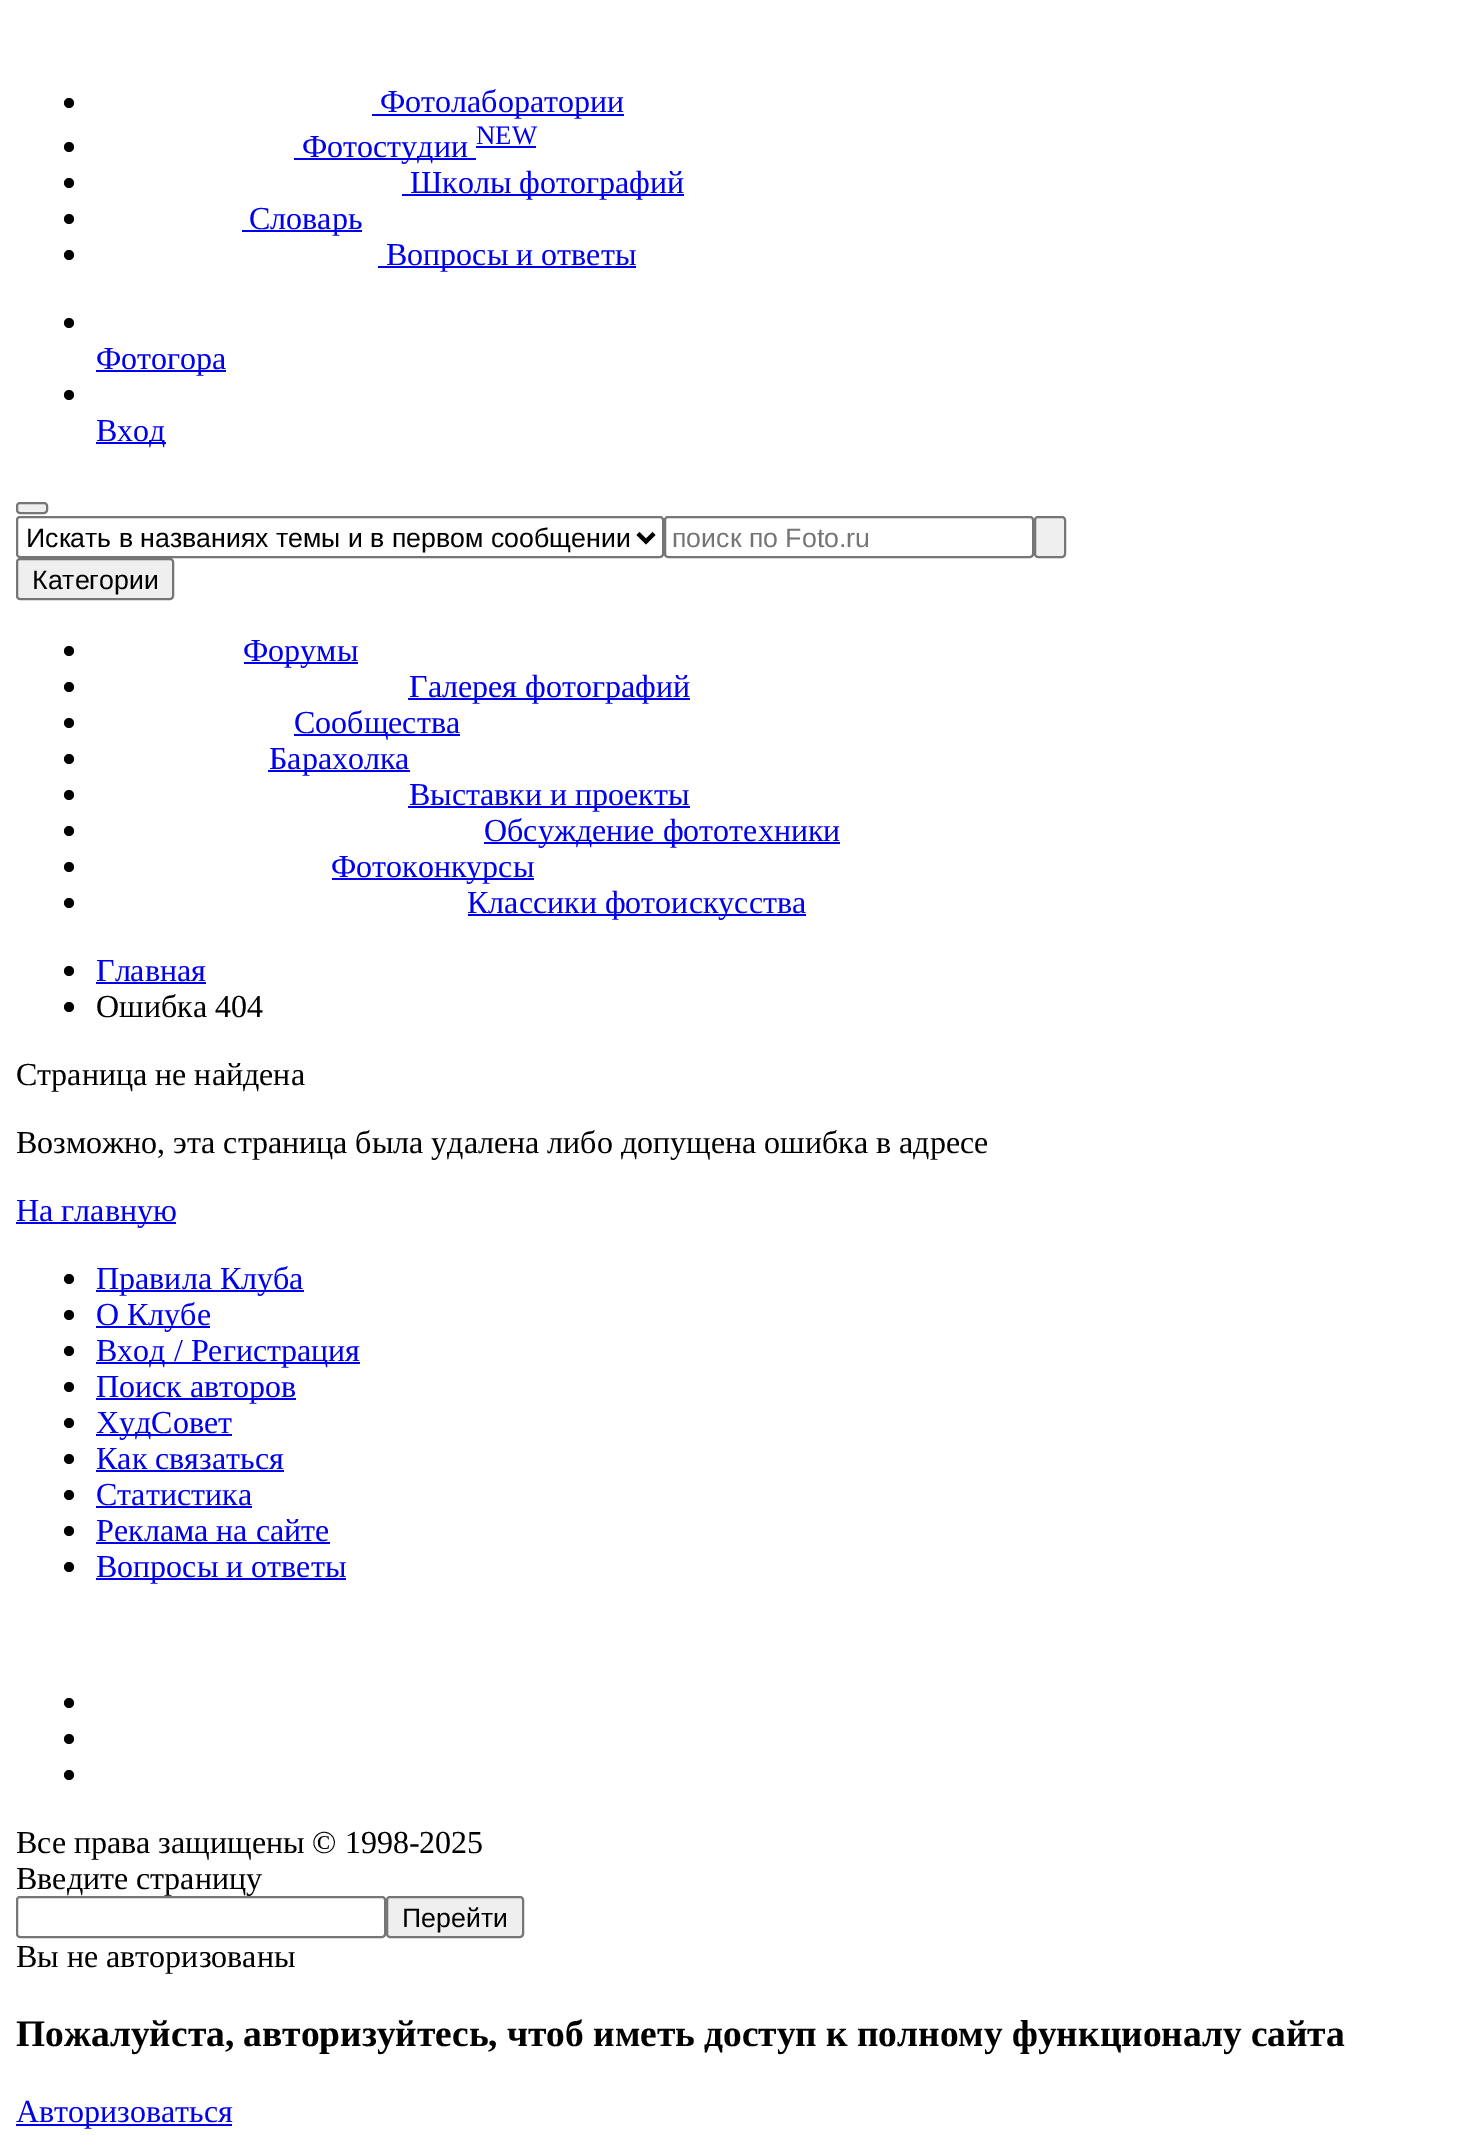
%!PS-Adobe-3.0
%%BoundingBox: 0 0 1469 2149
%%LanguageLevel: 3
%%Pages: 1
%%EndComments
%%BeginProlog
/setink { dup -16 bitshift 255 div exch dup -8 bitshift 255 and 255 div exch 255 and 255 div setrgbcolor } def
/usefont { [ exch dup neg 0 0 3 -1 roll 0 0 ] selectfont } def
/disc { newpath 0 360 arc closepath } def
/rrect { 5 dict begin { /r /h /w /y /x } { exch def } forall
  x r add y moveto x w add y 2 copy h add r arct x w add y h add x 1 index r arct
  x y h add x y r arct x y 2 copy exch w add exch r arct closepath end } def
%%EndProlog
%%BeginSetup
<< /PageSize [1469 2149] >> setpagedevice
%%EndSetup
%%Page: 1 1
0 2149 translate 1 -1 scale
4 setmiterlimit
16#FFFFFF setink
0 0 1469 2149 rectfill
16#000000 setink
69 103 5 disc fill
16#0000EE setink
372 114 252 2 rectfill
/LiberationSerif-Regular 32 usefont
380 112 moveto (Фотолаборатории) show
16#000000 setink
69 147 5 disc fill
16#0000EE setink
294 158 182 2 rectfill
302 157 moveto (Фотостудии) show
476 146 60 2 rectfill
/LiberationSerif-Regular 26.7 usefont
476 144 moveto (NEW) show
16#000000 setink
69 183 5 disc fill
16#0000EE setink
402 194 282 2 rectfill
/LiberationSerif-Regular 32 usefont
410 193 moveto (Школы фотографий) show
16#000000 setink
69 219 5 disc fill
16#0000EE setink
242 230 120 2 rectfill
249 229 moveto (Словарь) show
16#000000 setink
69 255 5 disc fill
16#0000EE setink
378 266 258 2 rectfill
386 265 moveto (Вопросы и ответы) show
16#000000 setink
69 323 5 disc fill
16#0000EE setink
96 370 130 2 rectfill
96 369 moveto (Фотогора) show
16#000000 setink
69 395 5 disc fill
16#0000EE setink
96 442 70 2 rectfill
96 441 moveto (Вход) show
16#EFEFEF setink
17 503 30 10 3 rrect gsave fill grestore
16#767676 setink
2 setlinewidth
stroke
17 517 646 40 3 rrect stroke
16#000000 setink
4 setlinewidth
638 533.5 moveto 646 541.5 lineto 654 533.5 lineto stroke
/LiberationSans-Regular 26.7 usefont
26 547 moveto (Искать в названиях темы и в первом сообщении) show
16#767676 setink
2 setlinewidth
665 517 368 40 3 rrect stroke
16#757575 setink
672 547 moveto (поиск по Foto.ru) show
16#EFEFEF setink
1035 517 30 40 3 rrect gsave fill grestore
16#767676 setink
stroke
16#EFEFEF setink
17 559 156 40 3 rrect gsave fill grestore
16#767676 setink
stroke
16#000000 setink
32 589 moveto (Категории) show
69 651 5 disc fill
16#0000EE setink
244 662 114 2 rectfill
/LiberationSerif-Regular 32 usefont
243 661 moveto (Форумы) show
16#000000 setink
69 687 5 disc fill
16#0000EE setink
408 698 282 2 rectfill
409 697 moveto (Галерея фотографий) show
16#000000 setink
69 723 5 disc fill
16#0000EE setink
294 734 166 2 rectfill
294 733 moveto (Сообщества) show
16#000000 setink
69 759 5 disc fill
16#0000EE setink
268 770 142 2 rectfill
269 769 moveto (Барахолка) show
16#000000 setink
69 795 5 disc fill
16#0000EE setink
408 806 282 2 rectfill
409 805 moveto (Выставки и проекты) show
16#000000 setink
69 831 5 disc fill
16#0000EE setink
484 842 356 2 rectfill
484 841 moveto (Обсуждение фототехники) show
16#000000 setink
69 867 5 disc fill
16#0000EE setink
332 878 202 2 rectfill
331 877 moveto (Фотоконкурсы) show
16#000000 setink
69 903 5 disc fill
16#0000EE setink
468 914 338 2 rectfill
467 913 moveto (Классики фотоискусства) show
16#000000 setink
69 971 5 disc fill
16#0000EE setink
96 981 moveto (Главная) show
96 982 110 2 rectfill
16#000000 setink
69 1007 5 disc fill
[
    [(Ошибка 404) 96 1017]
    [(Страница не найдена) 16 1085]
    [(Возможно, эта страница была удалена либо допущена ошибка в адресе) 16 1153]
] { aload pop moveto show } forall
16#0000EE setink
16 1222 160 2 rectfill
16 1221 moveto (На главную) show
16#000000 setink
69 1279 5 disc fill
16#0000EE setink
96 1290 208 2 rectfill
96 1289 moveto (Правила Клуба) show
16#000000 setink
69 1315 5 disc fill
16#0000EE setink
96 1326 114 2 rectfill
96 1325 moveto (О Клубе) show
16#000000 setink
69 1351 5 disc fill
16#0000EE setink
96 1362 264 2 rectfill
96 1361 moveto (Вход / Регистрация) show
16#000000 setink
69 1387 5 disc fill
16#0000EE setink
96 1398 200 2 rectfill
96 1397 moveto (Поиск авторов) show
16#000000 setink
69 1423 5 disc fill
16#0000EE setink
96 1434 136 2 rectfill
96 1433 moveto (ХудСовет) show
16#000000 setink
69 1459 5 disc fill
16#0000EE setink
96 1469 moveto (Как связаться) show
96 1470 188 2 rectfill
16#000000 setink
69 1495 5 disc fill
16#0000EE setink
96 1505 moveto (Статистика) show
96 1506 156 2 rectfill
16#000000 setink
69 1531 5 disc fill
16#0000EE setink
96 1541 moveto (Реклама на сайте) show
96 1542 234 2 rectfill
16#000000 setink
69 1567 5 disc fill
16#0000EE setink
96 1578 250 2 rectfill
96 1577 moveto (Вопросы и ответы) show
16#000000 setink
69 1703 5 disc fill
69 1739 5 disc fill
69 1775 5 disc fill
16 1853 moveto (Все права защищены © 1998-2025) show
16 1889 moveto (Введите страницу) show
16#767676 setink
17 1897 368 40 3 rrect stroke
16#EFEFEF setink
387 1897 136 40 3 rrect gsave fill grestore
16#767676 setink
stroke
/LiberationSans-Regular 26.7 usefont
16#000000 setink
402 1927 moveto (Перейти) show
/LiberationSerif-Regular 32 usefont
16 1967 moveto (Вы не авторизованы) show
/LiberationSerif-Bold 37.45 usefont
16 2046 moveto -0.25 0 32 (Пожалуйста, авторизуйтесь, чтоб иметь доступ к полному функционалу сайта) widthshow
16#0000EE setink
16 2124 216 2 rectfill
/LiberationSerif-Regular 32 usefont
16 2122 moveto (Авторизоваться) show
showpage
%%EOF
